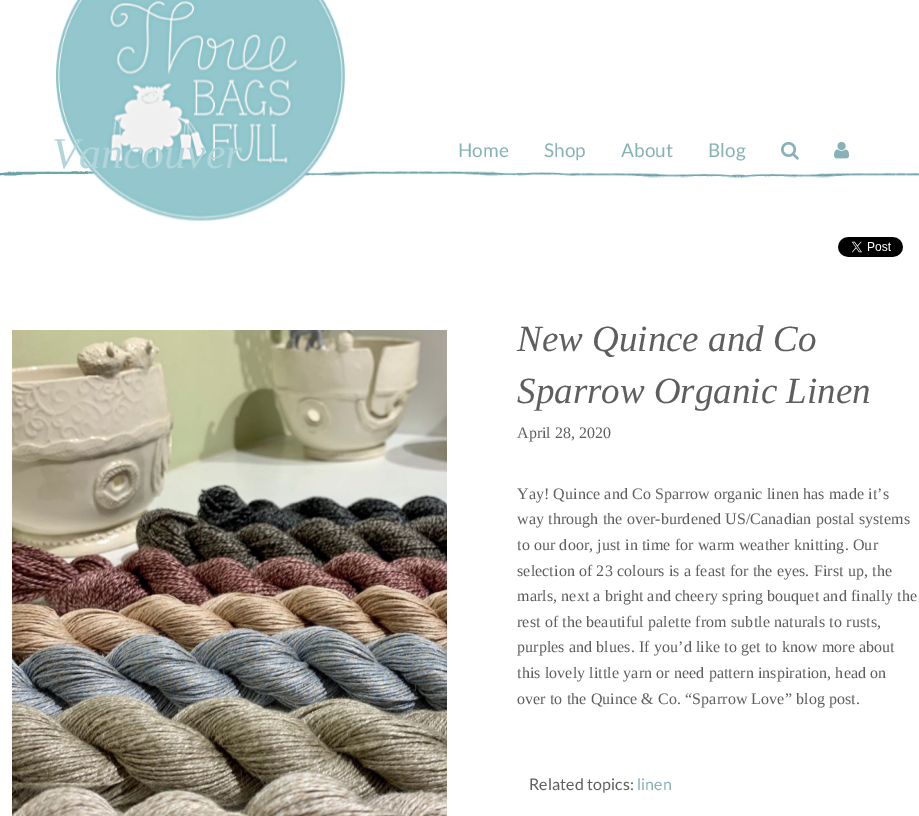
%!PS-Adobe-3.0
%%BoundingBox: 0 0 919 816
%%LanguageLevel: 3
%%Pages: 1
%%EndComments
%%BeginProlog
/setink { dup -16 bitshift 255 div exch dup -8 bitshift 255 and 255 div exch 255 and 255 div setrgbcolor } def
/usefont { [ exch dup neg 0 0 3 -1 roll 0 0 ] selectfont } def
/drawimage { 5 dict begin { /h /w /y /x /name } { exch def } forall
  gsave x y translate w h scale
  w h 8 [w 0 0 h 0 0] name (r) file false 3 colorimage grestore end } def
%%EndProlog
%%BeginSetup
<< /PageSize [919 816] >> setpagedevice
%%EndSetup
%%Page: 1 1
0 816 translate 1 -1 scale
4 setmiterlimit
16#FFFFFF setink
0 0 919 816 rectfill
(img1.raw) 0 171 919 7 drawimage
(img2.raw) 56 0 290 222 drawimage
/LiberationSerif-Italic 44 usefont
16#B1D5DA setink
52 168 moveto (Vancouver) show
/Lato-Regular 19 usefont
16#86B2B8 setink
[
    [(Home) 458 157]
    [(Shop) 544 157]
    [(About) 621 157]
    [(Blog) 708 157]
] { aload pop moveto show } forall
(img3.raw) 781 141 18 19 drawimage
(img4.raw) 834 141 16 18 drawimage
(img5.raw) 838 237 65 20 drawimage
(img6.raw) 12 330 435 486 drawimage
/LiberationSerif-Italic 37 usefont
16#5E5E5E setink
517 351 moveto (New Quince and Co) show
517 403 moveto (Sparrow Organic Linen) show
/LiberationSerif-Regular 16 usefont
517 438 moveto (April 28, 2020) show
517 499 moveto 0.1 0 (Yay! Quince and Co Sparrow organic linen has made it’s) ashow
517 524 moveto 0.1 0 (way through the over-burdened US/Canadian postal systems) ashow
517 550 moveto 0.1 0 (to our door, just in time for warm weather knitting. Our) ashow
517 576 moveto 0.1 0 (selection of 23 colours is a feast for the eyes. First up, the) ashow
517 601 moveto 0.1 0 (marls, next a bright and cheery spring bouquet and finally the) ashow
517 627 moveto 0.1 0 (rest of the beautiful palette from subtle naturals to rusts,) ashow
517 652 moveto 0.1 0 (purples and blues. If you’d like to get to know more about) ashow
517 678 moveto 0.1 0 (this lovely little yarn or need pattern inspiration, head on) ashow
517 704 moveto 0.1 0 (over to the Quince & Co. “Sparrow Love” blog post.) ashow
/Lato-Regular 16 usefont
529 790 moveto 0.1 0 (Related topics:) ashow
16#86B2B8 setink
637 790 moveto 0.1 0 (linen) ashow
showpage
%%EOF
